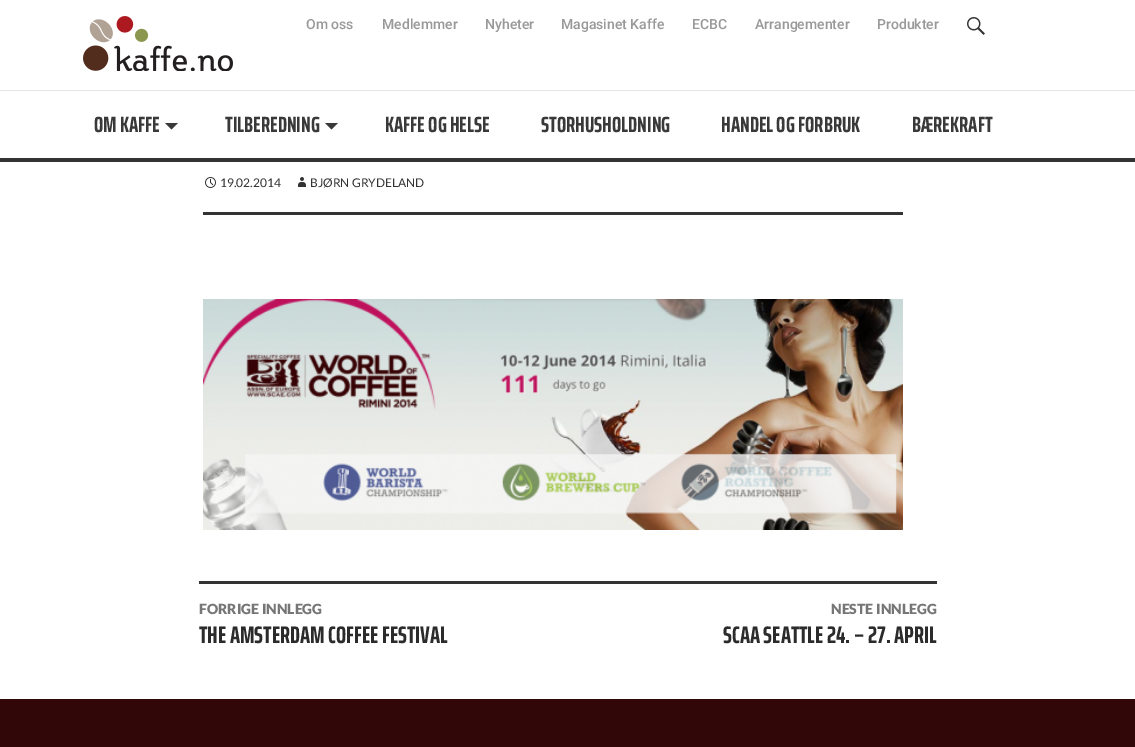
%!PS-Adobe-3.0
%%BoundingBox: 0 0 1135 747
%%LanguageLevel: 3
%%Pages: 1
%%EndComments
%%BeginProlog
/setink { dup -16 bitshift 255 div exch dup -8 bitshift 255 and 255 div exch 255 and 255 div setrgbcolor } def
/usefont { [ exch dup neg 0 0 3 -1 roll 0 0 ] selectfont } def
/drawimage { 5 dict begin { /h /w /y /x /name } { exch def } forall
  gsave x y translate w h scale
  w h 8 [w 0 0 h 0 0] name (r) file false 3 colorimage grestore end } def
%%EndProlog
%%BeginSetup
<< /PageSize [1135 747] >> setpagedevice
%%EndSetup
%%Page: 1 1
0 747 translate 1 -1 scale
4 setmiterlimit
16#FFFFFF setink
0 0 1135 747 rectfill
16#333333 setink
0 158 1135 4 rectfill
(img1.raw) 83 16 150 55 drawimage
/Roboto-Medium 14 usefont
16#999999 setink
[
    [(Om oss) 306 29]
    [(Medlemmer) 382 29]
    [(Nyheter) 485 29]
    [(Magasinet Kaffe) 561 29]
    [(ECBC) 692 29]
    [(Arrangementer) 755 29]
    [(Produkter) 877 29]
] { aload pop moveto show } forall
(img2.raw) 967 17 18 18 drawimage
16#E6E6E6 setink
0 90 1135 1 rectfill
/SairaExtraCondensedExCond-Bold 22 usefont
16#393939 setink
94 132 moveto (OM KAFFE) show
165 123 moveto 171.5 129.5 lineto 178 123 lineto closepath fill
225 132 moveto (TILBEREDNING) show
325 123 moveto 331.5 129.5 lineto 338 123 lineto closepath fill
[
    [(KAFFE OG HELSE) 385 132]
    [(STORHUSHOLDNING) 541 132]
    [(HANDEL OG FORBRUK) 721 132]
    [(BÆREKRAFT) 912 132]
] { aload pop moveto show } forall
16#333333 setink
203 212 700 3 rectfill
(img3.raw) 205 177 11 11 drawimage
/Lato-Regular 12 usefont
220 187 moveto (19.02.2014) show
(img4.raw) 298 177 8 10 drawimage
310 187 moveto (BJØRN GRYDELAND) show
(img5.raw) 203 299 700 231 drawimage
199 581 738 3 rectfill
/Lato-Black 14 usefont
16#767676 setink
199 614 moveto (FORRIGE INNLEGG) show
/SairaExtraCondensedExCond-Bold 24 usefont
16#2B2B2B setink
199 643 moveto (THE AMSTERDAM COFFEE FESTIVAL) show
/Lato-Black 14 usefont
16#767676 setink
831 614 moveto (NESTE INNLEGG) show
/SairaExtraCondensedExCond-Bold 24 usefont
16#2B2B2B setink
723 643 moveto (SCAA SEATTLE 24. – 27. APRIL) show
16#310807 setink
0 699 1135 48 rectfill
showpage
%%EOF
